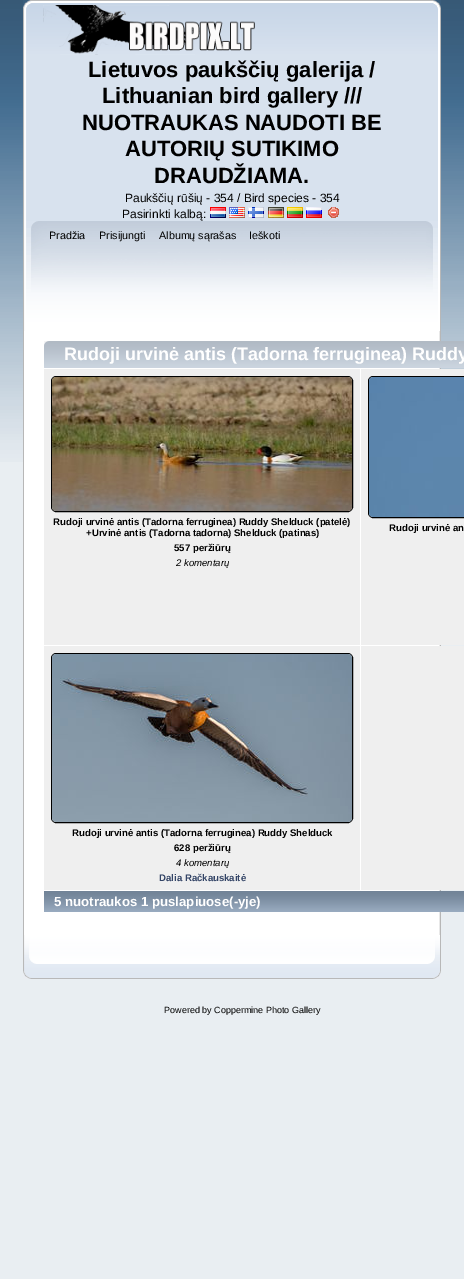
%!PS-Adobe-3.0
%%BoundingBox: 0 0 464 1279
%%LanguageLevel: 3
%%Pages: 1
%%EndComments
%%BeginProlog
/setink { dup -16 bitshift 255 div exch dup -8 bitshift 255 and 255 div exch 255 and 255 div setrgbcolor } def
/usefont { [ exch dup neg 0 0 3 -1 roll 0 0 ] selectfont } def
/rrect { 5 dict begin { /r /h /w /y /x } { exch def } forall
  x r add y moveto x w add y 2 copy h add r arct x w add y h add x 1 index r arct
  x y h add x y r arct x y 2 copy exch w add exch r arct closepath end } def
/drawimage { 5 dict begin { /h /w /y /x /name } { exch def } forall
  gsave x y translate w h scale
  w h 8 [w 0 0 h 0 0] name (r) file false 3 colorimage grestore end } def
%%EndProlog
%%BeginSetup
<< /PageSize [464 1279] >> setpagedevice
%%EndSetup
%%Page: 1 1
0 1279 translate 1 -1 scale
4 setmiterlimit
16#E9EEF2 setink
0 0 464 1279 rectfill
(img1.raw) 0 0 464 462 drawimage
(img2.raw) 23 0 410 221 drawimage
(img3.raw) 433 0 8 221 drawimage
(img4.raw) 43 5 212 50 drawimage
/LiberationSans-Bold 22 usefont
16#000000 setink
[
    [(Lietuvos paukščių galerija /) 88 77]
    [(Lithuanian bird gallery ///) 102 103]
    [(NUOTRAUKAS NAUDOTI BE) 82 130]
    [(AUTORIŲ SUTIKIMO) 125 156]
    [(DRAUDŽIAMA.) 154 183]
] { aload pop moveto show } forall
/LiberationSans-Regular 12 usefont
125 202 moveto (Paukščių rūšių - 354 / Bird species - 354) show
122 218 moveto (Pasirinkti kalbą:) show
(img5.raw) 210 207 16 11 drawimage
(img6.raw) 229 207 16 11 drawimage
(img7.raw) 248 207 16 11 drawimage
(img8.raw) 268 207 16 11 drawimage
(img9.raw) 287 207 16 11 drawimage
(img10.raw) 306 207 16 11 drawimage
(img11.raw) 328 207 11 11 drawimage
(img12.raw) 23 221 403 110 drawimage
(img13.raw) 426 221 15 110 drawimage
/LiberationSans-Regular 10.75 usefont
[
    [(Pradžia) 49 239]
    [(Prisijungti) 99 239]
    [(Albumų sąrašas) 159 239]
    [(Ieškoti) 249 239]
] { aload pop moveto show } forall
16#FFFFFF setink
24 331 415 604 rectfill
16#B7B7B7 setink
23 331 1 604 rectfill
(img14.raw) 439 331 2 604 drawimage
(img15.raw) 44 341 420 27 drawimage
/LiberationSans-Bold 18 usefont
16#FFFFFF setink
64 360 moveto (Rudoji urvinė antis \(Tadorna ferruginea\) Ruddy) show
16#EFEFEF setink
44 369 316 276 rectfill
16#000000 setink
51.5 376.5 301 135 4.5 rrect stroke
(img16.raw) 52 377 300 134 drawimage
/LiberationSans-Bold 9.6 usefont
[
    [(Rudoji urvinė antis \(Tadorna ferruginea\) Ruddy Shelduck \(patelė\)) 53 525]
    [(+Urvinė antis \(Tadorna tadorna\) Shelduck \(patinas\)) 86 536]
    [(557 peržiūrų) 174 551]
] { aload pop moveto show } forall
/LiberationSans-Italic 9.6 usefont
176 566 moveto (2 komentarų) show
16#EFEFEF setink
361 369 103 276 rectfill
16#000000 setink
368.5 376.5 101 141 4.5 rrect stroke
(img17.raw) 369 377 95 140 drawimage
/LiberationSans-Bold 9.6 usefont
389 531 moveto (Rudoji urvinė an) show
16#EFEFEF setink
44 646 316 244 rectfill
16#000000 setink
51.5 653.5 301 169 4.5 rrect stroke
(img18.raw) 52 654 300 168 drawimage
72 836 moveto (Rudoji urvinė antis \(Tadorna ferruginea\) Ruddy Shelduck) show
174 851 moveto (628 peržiūrų) show
/LiberationSans-Italic 9.6 usefont
176 866 moveto (4 komentarų) show
/LiberationSans-Bold 9.6 usefont
16#334466 setink
159 881 moveto (Dalia Račkauskaitė) show
16#EFEFEF setink
361 646 103 244 rectfill
(img19.raw) 44 891 420 21 drawimage
/LiberationSans-Bold 13.25 usefont
16#FFFFFF setink
54 906 moveto (5 nuotraukos 1 puslapiuose\(-yje\)) show
(img20.raw) 23 935 405 44 drawimage
(img21.raw) 428 935 13 44 drawimage
/LiberationSans-Regular 9 usefont
16#000000 setink
164 1013 moveto (Powered by Coppermine Photo Gallery) show
showpage
%%EOF
